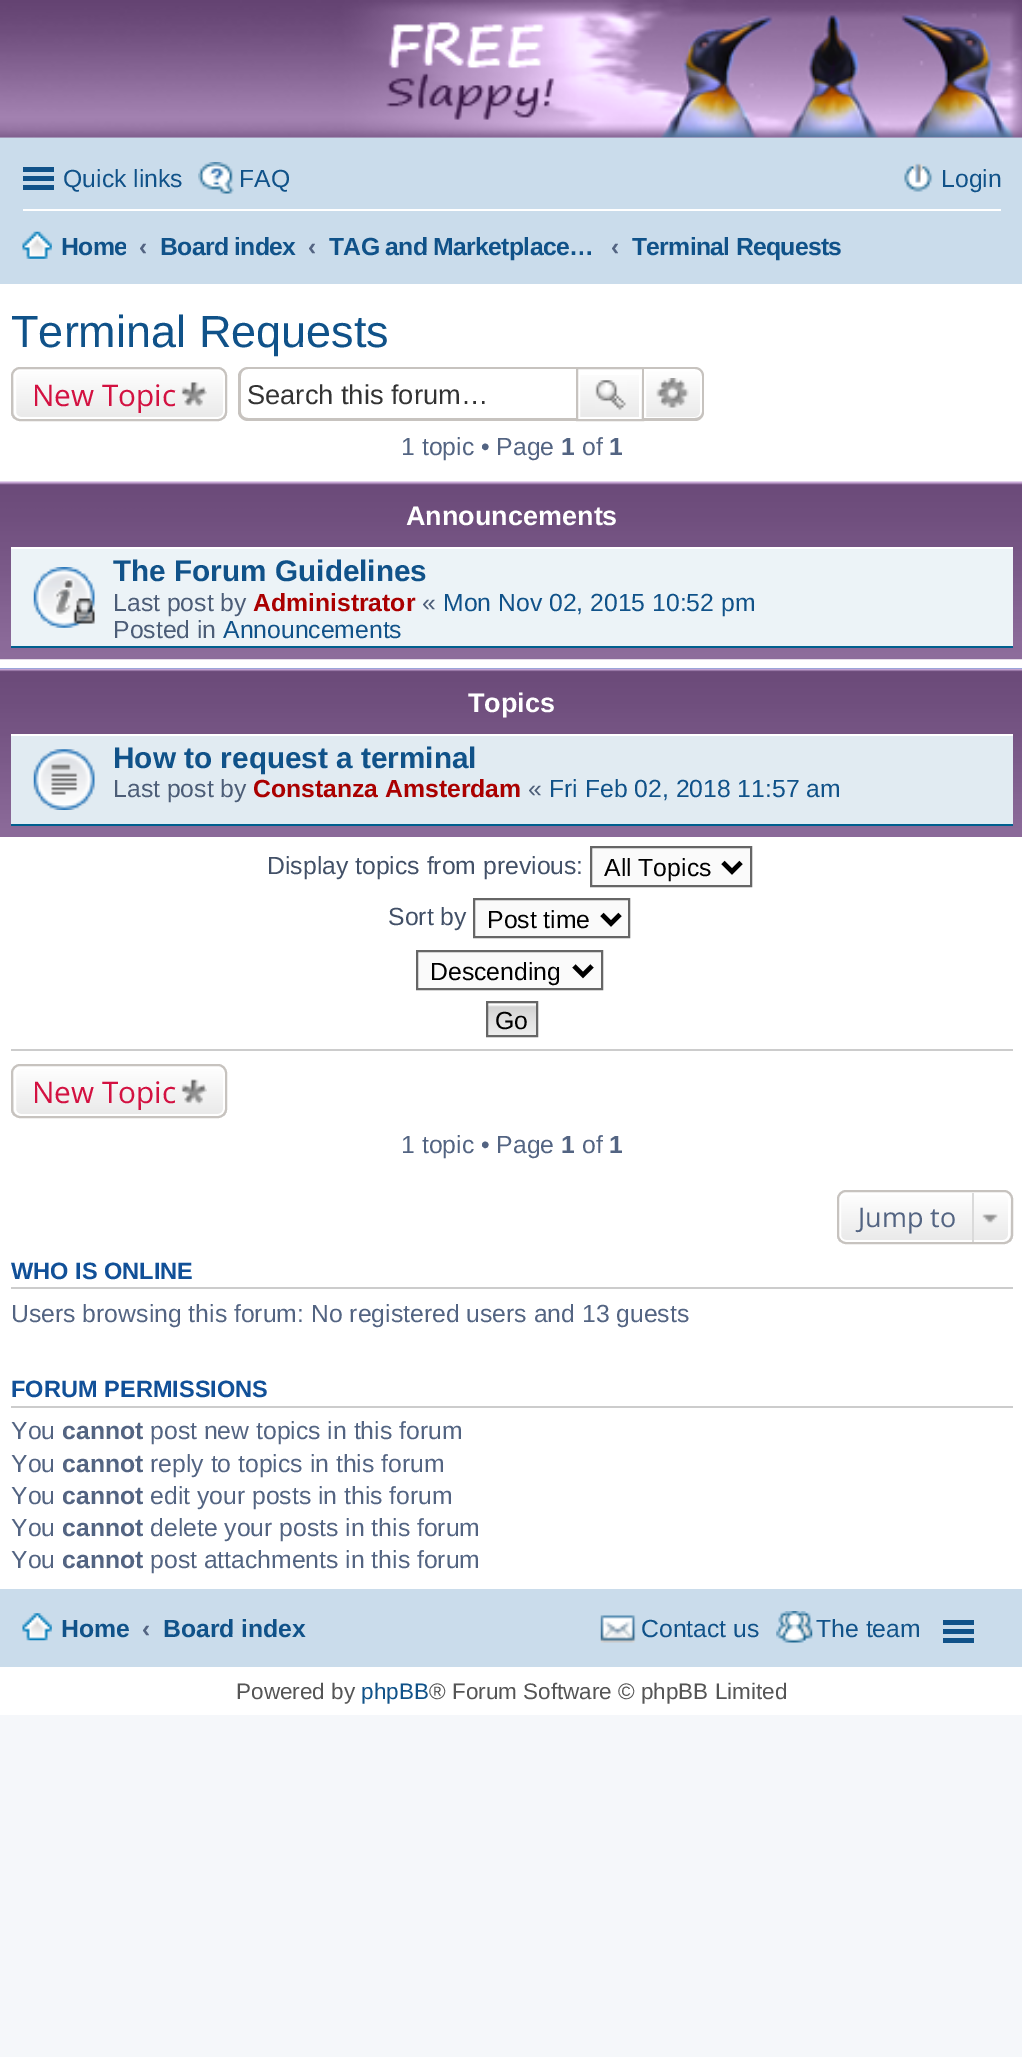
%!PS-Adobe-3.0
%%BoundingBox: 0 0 1022 2057
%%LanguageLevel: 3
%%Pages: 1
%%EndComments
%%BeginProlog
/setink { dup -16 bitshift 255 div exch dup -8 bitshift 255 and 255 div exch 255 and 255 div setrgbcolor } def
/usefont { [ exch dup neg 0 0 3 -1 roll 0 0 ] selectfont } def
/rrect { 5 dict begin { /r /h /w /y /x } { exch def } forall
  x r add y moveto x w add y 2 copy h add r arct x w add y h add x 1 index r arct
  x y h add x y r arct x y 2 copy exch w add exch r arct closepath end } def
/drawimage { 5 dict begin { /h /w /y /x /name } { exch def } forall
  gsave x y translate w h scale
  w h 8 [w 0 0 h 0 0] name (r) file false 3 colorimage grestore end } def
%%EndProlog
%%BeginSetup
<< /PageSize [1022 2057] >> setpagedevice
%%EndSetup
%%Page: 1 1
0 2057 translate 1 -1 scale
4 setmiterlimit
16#F5F7FA setink
0 0 1022 2057 rectfill
16#CADCEB setink
0 137 1022 147 rectfill
(img1.raw) 0 137 1022 1 drawimage
(img3.raw) 0 137 1022 1 drawimage
(img2.raw) 0 0 1022 138 drawimage
[
    [0 284 1022 1431 16#FFFFFF]
    [23 167 31 5 16#105289]
    [23 176 31 5 16#105289]
    [23 185 31 5 16#105289]
] { aload pop setink rectfill } forall
/LiberationSans-Regular 24.75 usefont
63 187 moveto (Quick links) show
(img4.raw) 198 162 36 32 drawimage
239 187 moveto (FAQ) show
(img5.raw) 904 163 29 29 drawimage
941 187 moveto (Login) show
16#FFFFFF setink
23 209 978 2 rectfill
(img6.raw) 22 231 30 28 drawimage
gsave
23 218 103 54 rectclip
/LiberationSans-Bold 24.75 usefont
16#105289 setink
61 255 moveto -0.7 0 (Home) ashow
grestore
/LiberationSans-Bold 24.75 usefont
16#536482 setink
139 255 moveto (‹) show
16#105289 setink
160 255 moveto -0.7 0 (Board index) ashow
16#536482 setink
308 255 moveto (‹) show
gsave
329 218 270 54 rectclip
16#105289 setink
329 255 moveto -0.7 0 (TAG and Marketplace…) ashow
grestore
611 255 moveto (‹) show
gsave
632 218 210 54 rectclip
16#105289 setink
632 255 moveto -0.7 0 (Terminal Requests) ashow
grestore
/LiberationSans-Regular 45 usefont
16#105289 setink
11 347 moveto (Terminal Requests) show
gsave
11 367 216 54 9 rrect clip newpath
gsave 11 369 moveto 227 369 lineto 227 419 lineto 11 419 lineto closepath clip newpath
<< /ShadingType 2 /ColorSpace /DeviceRGB /Coords [119 369 119 419] /Extend [true true] /Function << /FunctionType 2 /Domain [0 1] /C0 [1 1 1] /C1 [0.914 0.914 0.914] /N 1 >> >> shfill grestore
grestore
16#FFFFFF setink
2 setlinewidth
15 370 209 48 6 rrect stroke
16#C7C3BF setink
12 368 214 52 8 rrect stroke
/OpenSans-Regular 29.75 usefont
16#D31141 setink
32 406 moveto (New Topic) show
(img7.raw) 181 382 26 25 drawimage
16#C7C3BF setink
248 367 moveto 576 367 lineto 576 421 lineto 248 421 lineto 243 421 238 417 238 412 curveto 238 376 lineto 238 371 243 367 248 367 curveto closepath 248 369 moveto 576 369 lineto 576 418 lineto 248 418 lineto 244 418 241 415 241 412 curveto 241 376 lineto 241 372 244 369 248 369 curveto closepath eofill
/LiberationSans-Regular 27.25 usefont
16#333333 setink
247 404 moveto (Search this forum…) show
gsave 580 375 moveto 642 375 lineto 642 419 lineto 580 419 lineto closepath clip newpath
<< /ShadingType 2 /ColorSpace /DeviceRGB /Coords [610 369 610 419] /Extend [true true] /Function << /FunctionType 2 /Domain [0 1] /C0 [1 1 1] /C1 [0.914 0.914 0.914] /N 1 >> >> shfill grestore
16#FFFFFF setink
579 370 61 48 rectstroke
16#C7C3BF setink
577 368 66 52 rectstroke
(img8.raw) 595 380 32 31 drawimage
gsave 645 370 moveto 695 370 lineto 698.5 370 701 372.5 701 376 curveto 701 412 lineto 701 415.5 698.5 418 695 418 curveto 645 418 lineto closepath clip newpath
<< /ShadingType 2 /ColorSpace /DeviceRGB /Coords [673 369 673 419] /Extend [true true] /Function << /FunctionType 2 /Domain [0 1] /C0 [1 1 1] /C1 [0.914 0.914 0.914] /N 1 >> >> shfill grestore
16#FFFFFF setink
645 370 moveto 695 370 lineto 698.5 370 701 372.5 701 376 curveto 701 412 lineto 701 415.5 698.5 418 695 418 curveto 645 418 lineto closepath stroke
16#C7C3BF setink
644 367 moveto 695 367 lineto 700 367 704 371 704 376 curveto 704 412 lineto 704 417 700 421 695 421 curveto 644 421 lineto closepath 644 369 moveto 695 369 lineto 699 369 702 372 702 376 curveto 702 412 lineto 702 415 699 418 695 418 curveto 644 418 lineto closepath eofill
(img9.raw) 656 378 33 30 drawimage
/LiberationSans-Regular 24.75 usefont
16#536482 setink
401 455 moveto (1 topic • Page) show
/LiberationSans-Bold 24.75 usefont
561 455 moveto (1) show
/LiberationSans-Regular 24.75 usefont
582 455 moveto (of) show
/LiberationSans-Bold 24.75 usefont
609 455 moveto (1) show
(img10.raw) 0 481 1022 179 drawimage
/LiberationSans-Bold 27 usefont
16#FFFFFF setink
406 525 moveto (Announcements) show
[
    [11 549 1002 97 16#ECF3F7]
    [11 547 1002 2 16#FFFFFF]
    [11 646 1002 2 16#00608F]
] { aload pop setink rectfill } forall
(img11.raw) 33 567 62 61 drawimage
/LiberationSans-Bold 29.75 usefont
16#105289 setink
113 581 moveto (The Forum Guidelines) show
/LiberationSans-Regular 24.75 usefont
16#4C5D77 setink
113 611 moveto (Last post by) show
/LiberationSans-Bold 24.75 usefont
16#AA0000 setink
253 611 moveto (Administrator) show
/LiberationSans-Regular 24.75 usefont
16#4C5D77 setink
422 611 moveto («) show
16#105289 setink
443 611 moveto (Mon Nov 02, 2015 10:52 pm) show
16#4C5D77 setink
113 638 moveto (Posted in) show
16#105289 setink
223 638 moveto (Announcements) show
(img12.raw) 0 668 1022 169 drawimage
/LiberationSans-Bold 27 usefont
16#FFFFFF setink
468 712 moveto (Topics) show
[
    [11 736 1002 88 16#E1EBF2]
    [11 734 1002 2 16#FFFFFF]
    [11 824 1002 2 16#00608F]
] { aload pop setink rectfill } forall
(img13.raw) 33 749 62 61 drawimage
/LiberationSans-Bold 29.75 usefont
16#105289 setink
113 768 moveto (How to request a terminal) show
/LiberationSans-Regular 24.75 usefont
16#4C5D77 setink
113 797 moveto (Last post by) show
/LiberationSans-Bold 24.75 usefont
16#AA0000 setink
253 797 moveto (Constanza Amsterdam) show
/LiberationSans-Regular 24.75 usefont
16#4C5D77 setink
528 797 moveto («) show
16#105289 setink
549 797 moveto (Fri Feb 02, 2018 11:57 am) show
16#425067 setink
267 874 moveto (Display topics from previous:) show
16#FAFAFA setink
591 847 moveto 751 847 lineto 751 886 lineto 591 886 lineto closepath gsave fill grestore
16#666666 setink
stroke
16#000000 setink
4.5 setlinewidth
723 862.5 moveto 732 871.5 lineto 741 862.5 lineto stroke
604 876 moveto (All Topics) show
16#425067 setink
388 925 moveto (Sort by) show
16#FAFAFA setink
474 899 moveto 629 899 lineto 629 937 lineto 474 937 lineto closepath gsave fill grestore
16#666666 setink
2 setlinewidth
stroke
16#000000 setink
4.5 setlinewidth
602 914.5 moveto 611 923.5 lineto 620 914.5 lineto stroke
487 928 moveto (Post time) show
16#FAFAFA setink
417 951 moveto 602 951 lineto 602 989 lineto 417 989 lineto closepath gsave fill grestore
16#666666 setink
2 setlinewidth
stroke
16#000000 setink
4.5 setlinewidth
574 966 moveto 583 975 lineto 592 966 lineto stroke
430 980 moveto (Descending) show
16#FAFAFA setink
488 1003 48 1 rectfill
(img14.raw) 486 1004 52 34 drawimage
16#666666 setink
2 setlinewidth
487 1002 50 34 rectstroke
16#000000 setink
495 1029 moveto (Go) show
16#CCCCCC setink
11 1049 1002 2 rectfill
gsave
11 1064 216 54 9 rrect clip newpath
gsave 11 1067 moveto 227 1067 lineto 227 1116 lineto 11 1116 lineto closepath clip newpath
<< /ShadingType 2 /ColorSpace /DeviceRGB /Coords [119 1067 119 1116] /Extend [true true] /Function << /FunctionType 2 /Domain [0 1] /C0 [1 1 1] /C1 [0.914 0.914 0.914] /N 1 >> >> shfill grestore
grestore
16#FFFFFF setink
15 1068 209 47 6 rrect stroke
16#C7C3BF setink
12 1065 214 52 8 rrect stroke
/OpenSans-Regular 29.75 usefont
16#D31141 setink
32 1103 moveto (New Topic) show
(img15.raw) 181 1079 26 26 drawimage
/LiberationSans-Regular 24.75 usefont
16#536482 setink
401 1153 moveto (1 topic • Page) show
/LiberationSans-Bold 24.75 usefont
561 1153 moveto (1) show
/LiberationSans-Regular 24.75 usefont
582 1153 moveto (of) show
/LiberationSans-Bold 24.75 usefont
609 1153 moveto (1) show
gsave
837 1190 176 54 9 rrect clip newpath
gsave 837 1193 moveto 1013 1193 lineto 1013 1242 lineto 837 1242 lineto closepath clip newpath
<< /ShadingType 2 /ColorSpace /DeviceRGB /Coords [925 1193 925 1242] /Extend [true true] /Function << /FunctionType 2 /Domain [0 1] /C0 [1 1 1] /C1 [0.914 0.914 0.914] /N 1 >> >> shfill grestore
grestore
16#FFFFFF setink
840 1194 169 47 6 rrect stroke
16#C7C3BF setink
838 1191 174 52 8 rrect stroke
/OpenSans-Regular 27 usefont
16#536482 setink
858 1227 moveto (Jump to) show
(img16.raw) 982 1214 16 10 drawimage
16#DADADA setink
972 1193 2 49 rectfill
16#CCCCCC setink
11 1287 1002 2 rectfill
/LiberationSans-Bold 23.6 usefont
16#115098 setink
11 1279 moveto (WHO IS ONLINE) show
/LiberationSans-Regular 24.75 usefont
16#536482 setink
11 1322 moveto (Users browsing this forum: No registered users and 13 guests) show
16#CCCCCC setink
11 1406 1002 2 rectfill
/LiberationSans-Bold 23.6 usefont
16#115098 setink
11 1397 moveto (FORUM PERMISSIONS) show
/LiberationSans-Regular 24.75 usefont
16#536482 setink
11 1439 moveto (You) show
/LiberationSans-Bold 24.75 usefont
62 1439 moveto (cannot) show
/LiberationSans-Regular 24.75 usefont
150 1439 moveto (post new topics in this forum) show
11 1472 moveto (You) show
/LiberationSans-Bold 24.75 usefont
62 1472 moveto (cannot) show
/LiberationSans-Regular 24.75 usefont
150 1472 moveto (reply to topics in this forum) show
11 1504 moveto (You) show
/LiberationSans-Bold 24.75 usefont
62 1504 moveto (cannot) show
/LiberationSans-Regular 24.75 usefont
150 1504 moveto (edit your posts in this forum) show
11 1536 moveto (You) show
/LiberationSans-Bold 24.75 usefont
62 1536 moveto (cannot) show
/LiberationSans-Regular 24.75 usefont
150 1536 moveto (delete your posts in this forum) show
11 1568 moveto (You) show
/LiberationSans-Bold 24.75 usefont
62 1568 moveto (cannot) show
/LiberationSans-Regular 24.75 usefont
150 1568 moveto (post attachments in this forum) show
16#CADCEB setink
0 1589 1022 78 rectfill
(img17.raw) 22 1613 30 28 drawimage
/LiberationSans-Bold 24.75 usefont
16#105289 setink
61 1637 moveto (Home) show
16#536482 setink
142 1637 moveto (‹) show
16#105289 setink
163 1637 moveto (Board index) show
(img18.raw) 600 1615 36 28 drawimage
/LiberationSans-Regular 24.75 usefont
641 1637 moveto (Contact us) show
(img19.raw) 776 1611 37 32 drawimage
816 1637 moveto (The team) show
[
    [943 1620 31 5 16#105289]
    [943 1629 31 5 16#105289]
    [943 1638 31 5 16#105289]
] { aload pop setink rectfill } forall
/LiberationSans-Regular 22.5 usefont
16#555555 setink
236 1699 moveto (Powered by) show
16#105289 setink
361 1699 moveto (phpBB) show
16#555555 setink
429 1699 moveto (® Forum Software © phpBB Limited) show
showpage
%%EOF
